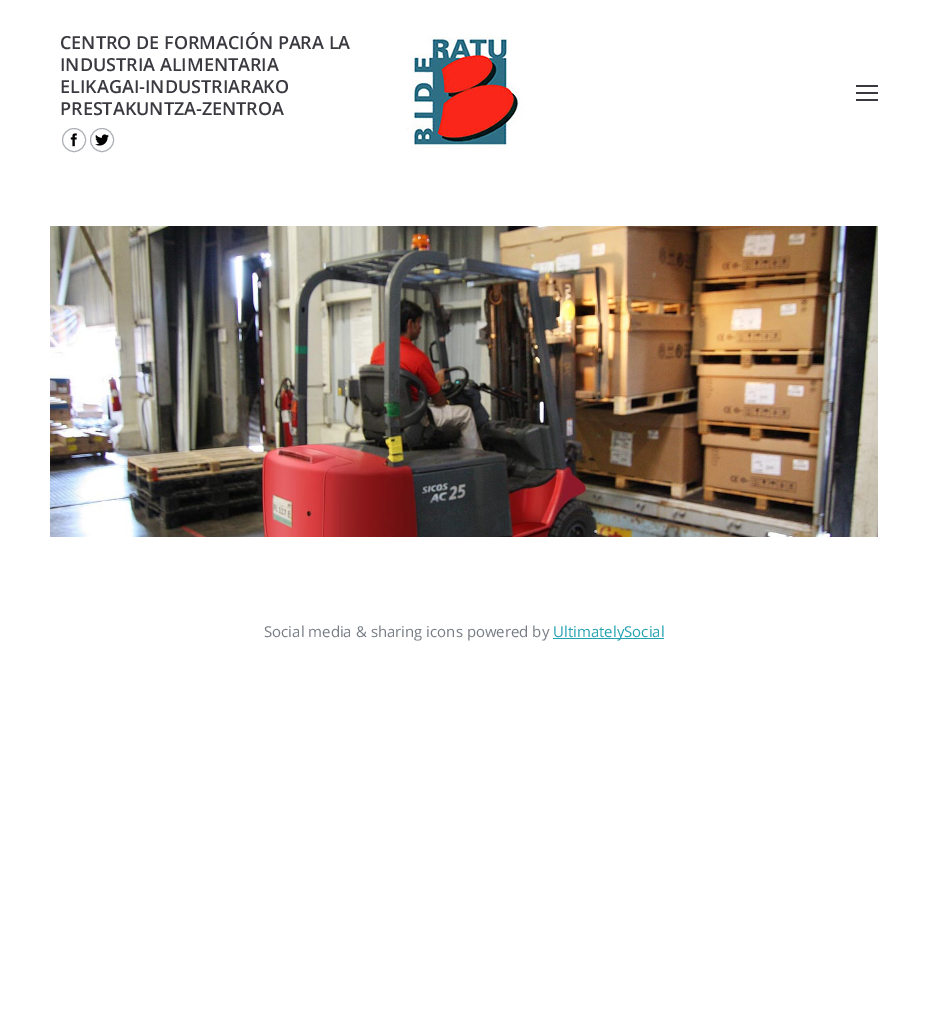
%!PS-Adobe-3.0
%%BoundingBox: 0 0 928 1014
%%LanguageLevel: 3
%%Pages: 1
%%EndComments
%%BeginProlog
/setink { dup -16 bitshift 255 div exch dup -8 bitshift 255 and 255 div exch 255 and 255 div setrgbcolor } def
/usefont { [ exch dup neg 0 0 3 -1 roll 0 0 ] selectfont } def
/disc { newpath 0 360 arc closepath } def
/drawimage { 5 dict begin { /h /w /y /x /name } { exch def } forall
  gsave x y translate w h scale
  w h 8 [w 0 0 h 0 0] name (r) file false 3 colorimage grestore end } def
%%EndProlog
%%BeginSetup
<< /PageSize [928 1014] >> setpagedevice
%%EndSetup
%%Page: 1 1
0 1014 translate 1 -1 scale
4 setmiterlimit
16#FFFFFF setink
0 0 928 1014 rectfill
/OpenSans-SemiBold 18 usefont
16#393940 setink
[
    [(CENTRO DE FORMACIÓN PARA LA) 60 49]
    [(INDUSTRIA ALIMENTARIA) 60 71]
    [(ELIKAGAI-INDUSTRIARAKO) 60 93]
    [(PRESTAKUNTZA-ZENTROA) 60 115]
] { aload pop moveto show } forall
16#ADB0B6 setink
74 140 11.5 disc stroke
(img1.raw) 70 133 7 14 drawimage
102 140 11.5 disc stroke
(img2.raw) 95 134 14 12 drawimage
(img3.raw) 406 37 118 112 drawimage
[
    [856 92 22 2 16#393940]
    [856 85 22 2 16#393940]
    [856 99 22 2 16#393940]
] { aload pop setink rectfill } forall
(img4.raw) 50 226 828 311 drawimage
/OpenSans-Regular 15 usefont
16#787D85 setink
264 637 moveto (Social media & sharing icons powered by) show
16#25A2B2 setink
553 638 111 1 rectfill
553 637 moveto (UltimatelySocial) show
showpage
%%EOF
